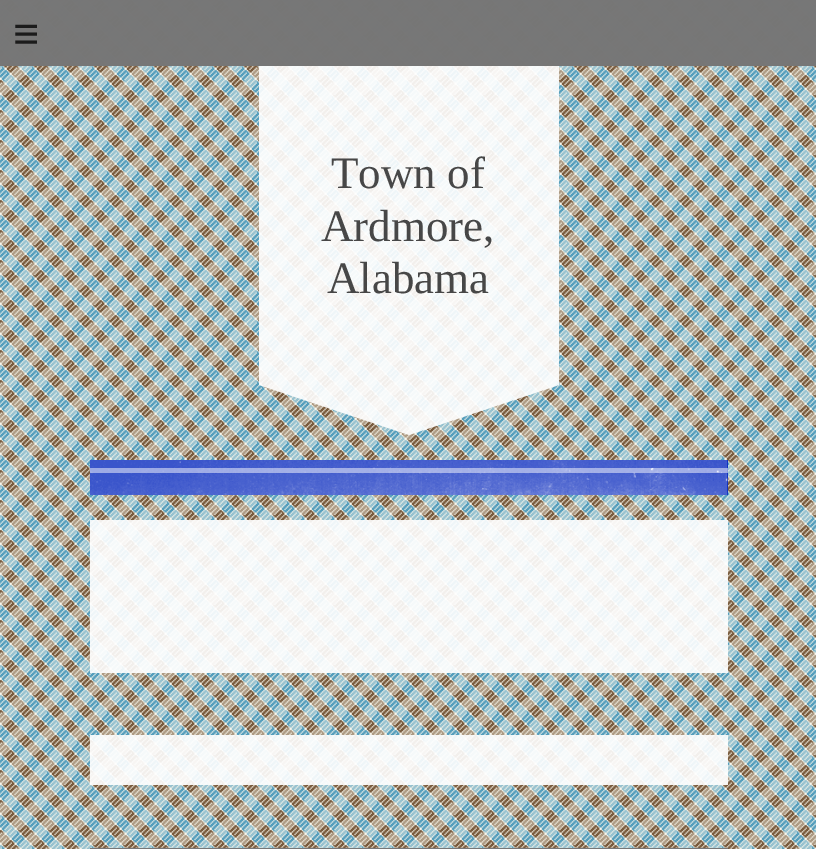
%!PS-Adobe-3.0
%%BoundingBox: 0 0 816 849
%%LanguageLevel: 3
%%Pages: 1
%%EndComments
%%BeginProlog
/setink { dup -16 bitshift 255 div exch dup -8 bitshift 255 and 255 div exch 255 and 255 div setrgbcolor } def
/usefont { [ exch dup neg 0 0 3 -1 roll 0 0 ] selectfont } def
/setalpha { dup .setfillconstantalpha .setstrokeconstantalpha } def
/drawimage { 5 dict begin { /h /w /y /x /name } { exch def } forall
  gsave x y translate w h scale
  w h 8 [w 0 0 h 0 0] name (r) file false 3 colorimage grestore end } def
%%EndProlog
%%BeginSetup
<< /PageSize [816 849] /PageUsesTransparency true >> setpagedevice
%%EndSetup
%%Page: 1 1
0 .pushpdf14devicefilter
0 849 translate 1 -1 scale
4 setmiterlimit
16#FFFFFF setink
0 0 816 849 rectfill
(img1.raw) 0 0 816 849 drawimage
0.99 setalpha
16#767676 setink
0 0 816 66 rectfill
/LiberationSans-Regular 45 usefont
1 setalpha
16#1B1B1B setink
13 49 moveto 13 0 (≡) ashow
0.9 setalpha
16#FFFFFF setink
259 66 300 319 rectfill
/LiberationSerif-Regular 45 usefont
1 setalpha
16#474747 setink
[
    [(Town of) 331 188]
    [(Ardmore,) 321 241]
    [(Alabama) 327 293]
] { aload pop moveto show } forall
0.9 setalpha
16#FFFFFF setink
259 385 moveto 559 385 lineto 409 435 lineto closepath fill
1 setalpha
16#0325BC setink
90 460 638 35 rectfill
(img2.raw) 90 460 638 35 drawimage
0.5 setalpha
[
    [90 468 638 5 16#FFFFFF]
] { aload pop setink rectfill } forall
0.9 setalpha
[
    [90 520 638 153 16#FFFFFF]
    [90 735 638 50 16#FFFFFF]
] { aload pop setink rectfill } forall
1 setalpha
[
    [90 848 638 1 16#767676]
] { aload pop setink rectfill } forall
.poppdf14devicefilter showpage
%%EOF
